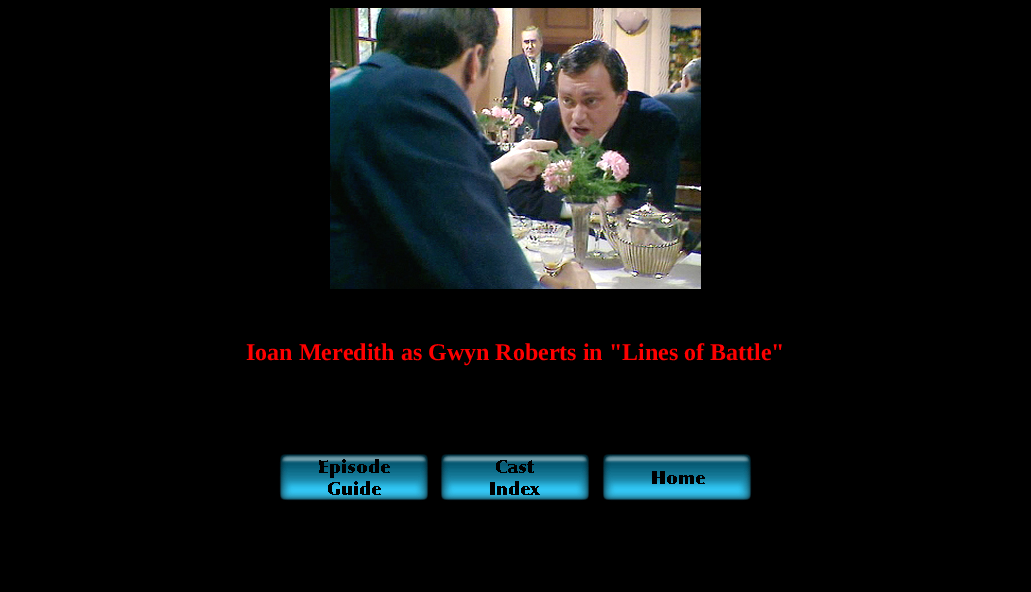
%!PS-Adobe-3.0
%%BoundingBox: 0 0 1031 592
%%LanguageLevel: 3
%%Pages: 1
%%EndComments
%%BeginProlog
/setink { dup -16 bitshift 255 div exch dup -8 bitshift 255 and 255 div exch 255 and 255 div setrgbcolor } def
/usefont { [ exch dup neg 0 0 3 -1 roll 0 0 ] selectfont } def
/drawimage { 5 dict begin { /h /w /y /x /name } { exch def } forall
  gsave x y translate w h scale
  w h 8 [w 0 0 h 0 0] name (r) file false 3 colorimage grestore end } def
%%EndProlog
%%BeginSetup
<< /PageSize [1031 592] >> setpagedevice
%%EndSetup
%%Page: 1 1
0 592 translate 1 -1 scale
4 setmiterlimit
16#000000 setink
0 0 1031 592 rectfill
(img1.raw) 330 8 371 281 drawimage
/LiberationSerif-Bold 24 usefont
16#FF0000 setink
246 360 moveto (Ioan Meredith as Gwyn Roberts in "Lines of Battle") show
(img2.raw) 279 454 150 47 drawimage
(img3.raw) 440 454 150 47 drawimage
(img4.raw) 602 454 150 47 drawimage
showpage
%%EOF
